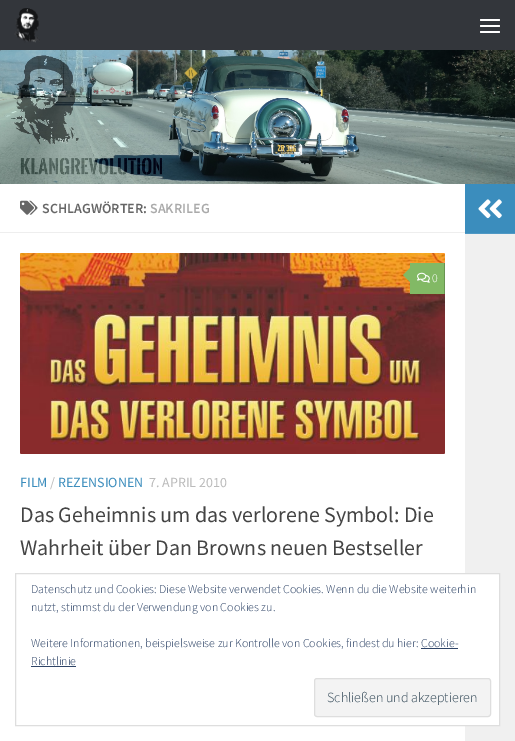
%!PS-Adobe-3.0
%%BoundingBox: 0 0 515 741
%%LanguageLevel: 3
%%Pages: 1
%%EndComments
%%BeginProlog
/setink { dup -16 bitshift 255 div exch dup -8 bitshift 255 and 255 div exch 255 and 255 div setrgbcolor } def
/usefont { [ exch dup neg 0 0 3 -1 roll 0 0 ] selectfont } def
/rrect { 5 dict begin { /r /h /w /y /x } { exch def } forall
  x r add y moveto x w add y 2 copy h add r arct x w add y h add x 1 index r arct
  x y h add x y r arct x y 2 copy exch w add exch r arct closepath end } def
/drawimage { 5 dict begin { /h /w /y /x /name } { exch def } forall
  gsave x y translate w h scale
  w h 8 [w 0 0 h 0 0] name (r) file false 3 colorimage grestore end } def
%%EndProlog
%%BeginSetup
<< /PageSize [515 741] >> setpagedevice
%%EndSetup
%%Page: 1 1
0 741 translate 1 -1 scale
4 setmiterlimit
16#FFFFFF setink
0 0 515 741 rectfill
16#33363B setink
0 0 515 184 rectfill
(img1.raw) 14 8 26 35 drawimage
16#FFFFFF setink
480 19 20 2 1 rrect fill
480 25 20 2 1 rrect fill
480 31 20 2 1 rrect fill
(img2.raw) 0 50 515 134 drawimage
16#EEEEEE setink
0 232 465 1 rectfill
(img3.raw) 20 200 18 15 drawimage
/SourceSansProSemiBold-SemiBold 14 usefont
16#666666 setink
42 213 moveto (SCHLAGWÖRTER:) show
16#AAAAAA setink
150 213 moveto (SAKRILEG) show
(img4.raw) 20 253 425 201 drawimage
16#82B965 setink
410 263 34 31 rectfill
16#689451 setink
444 263 1 31 rectfill
16#82B965 setink
412 266 moveto 412 284 lineto 403 275 lineto closepath fill
(img5.raw) 417 272 13 11 drawimage
/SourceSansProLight-Light 12 usefont
16#FFFFFF setink
432 282 moveto (0) show
/SourceSansPro-Regular 14 usefont
16#3B8DBD setink
20 487 moveto (FILM) show
16#BBBBBB setink
50 487 moveto (/) show
16#3B8DBD setink
58 487 moveto (REZENSIONEN) show
16#BBBBBB setink
149 487 moveto (7. APRIL 2010) show
/SourceSansPro-Regular 22 usefont
16#444444 setink
20 522 moveto (Das Geheimnis um das verlorene Symbol: Die) show
20 555 moveto (Wahrheit über Dan Browns neuen Bestseller) show
16#3B8DBD setink
465 184 50 49 rectfill
16#4F98C4 setink
465 233 50 1 rectfill
(img6.raw) 478 199 24 20 drawimage
16#F0F0F0 setink
465 234 50 507 rectfill
16#FFFFFF setink
465 574 34 151 rectfill
16#DEDEDE setink
15.5 573.5 484 152 rectstroke
/SourceSansProLight-Light 12 usefont
16#2E4467 setink
[
    [(Datenschutz und Cookies: Diese Website verwendet Cookies. Wenn du die Website weiterhin) 31 593]
    [(nutzt, stimmst du der Verwendung von Cookies zu.) 31 611]
    [(Weitere Informationen, beispielsweise zur Kontrolle von Cookies, findest du hier: Cookie-) 31 647]
    [(Richtlinie) 31 665]
] { aload pop moveto show } forall
421 648 37 1 rectfill
31 666 45 1 rectfill
16#F3F3F3 setink
314.5 678.5 176 38 2.5 rrect gsave fill grestore
16#DEDEDE setink
stroke
/SourceSansProLight-Light 14 usefont
16#2E4453 setink
327 702 moveto (Schließen und akzeptieren) show
showpage
%%EOF
